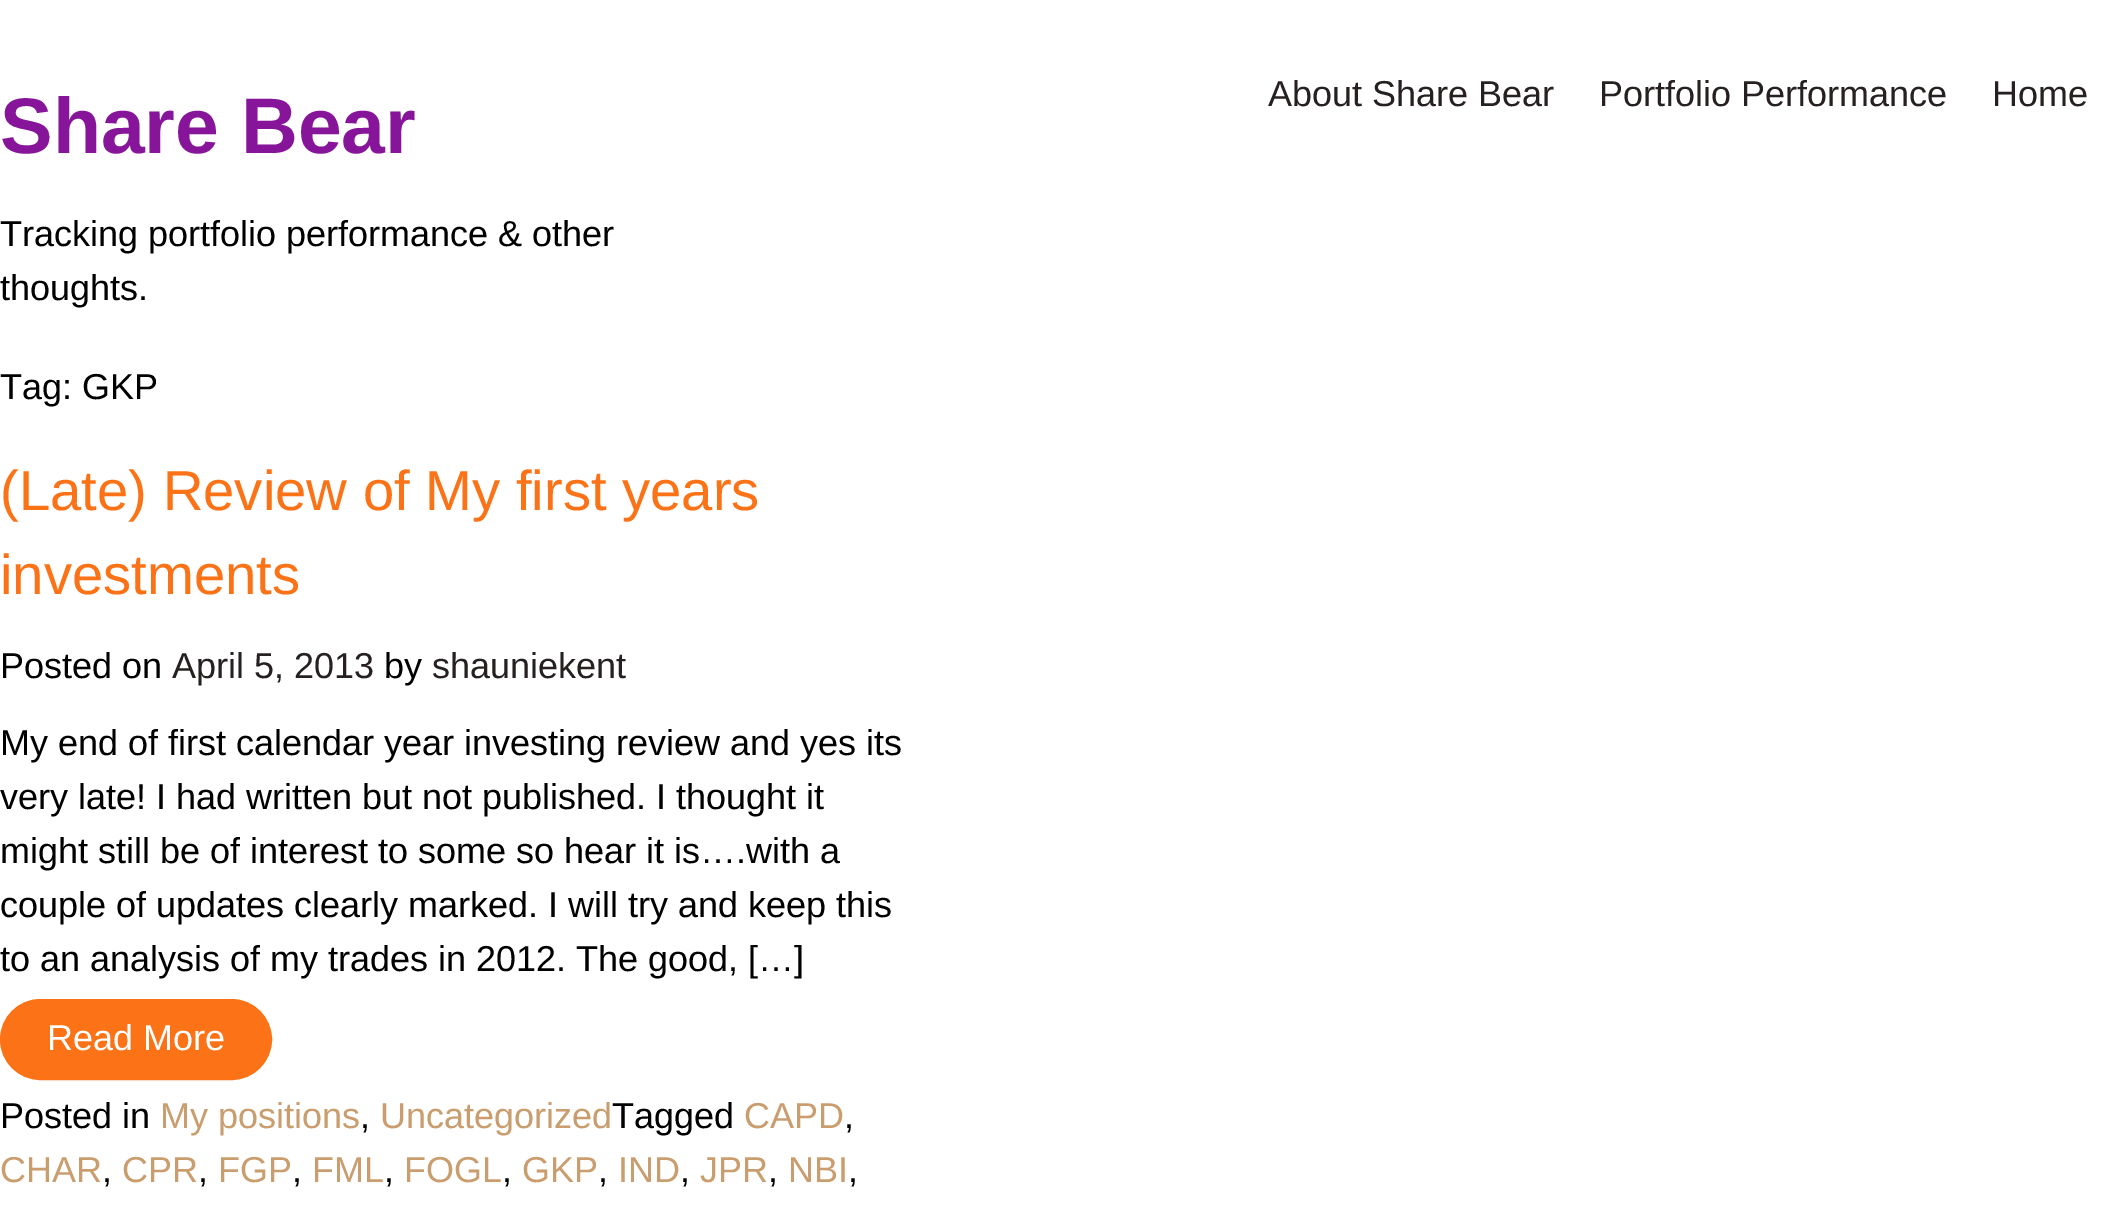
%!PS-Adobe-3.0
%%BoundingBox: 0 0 2109 1216
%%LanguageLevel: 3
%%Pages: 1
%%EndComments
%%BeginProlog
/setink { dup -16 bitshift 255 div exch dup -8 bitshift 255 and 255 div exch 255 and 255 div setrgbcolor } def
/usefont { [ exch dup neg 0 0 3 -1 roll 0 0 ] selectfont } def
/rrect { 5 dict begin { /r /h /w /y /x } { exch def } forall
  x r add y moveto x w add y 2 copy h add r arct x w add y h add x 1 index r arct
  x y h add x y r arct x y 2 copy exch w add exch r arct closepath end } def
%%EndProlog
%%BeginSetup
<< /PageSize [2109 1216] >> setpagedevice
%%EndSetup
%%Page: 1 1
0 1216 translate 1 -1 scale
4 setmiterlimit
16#FFFFFF setink
0 0 2109 1216 rectfill
/LiberationSans-Bold 78.75 usefont
16#87159A setink
0 153 moveto (Share Bear) show
/LiberationSans-Regular 36 usefont
16#000000 setink
0 246 moveto (Tracking portfolio performance & other) show
0 300 moveto (thoughts.) show
16#262020 setink
[
    [(About Share Bear) 1268 106]
    [(Portfolio Performance) 1599 106]
    [(Home) 1992 106]
] { aload pop moveto show } forall
16#000000 setink
0 399 moveto (Tag: GKP) show
/LiberationSans-Regular 56.25 usefont
16#FC7216 setink
0 510 moveto (\(Late\) Review of My first years) show
0 594 moveto (investments) show
/LiberationSans-Regular 36 usefont
16#000000 setink
0 678 moveto (Posted on) show
16#262020 setink
172 678 moveto (April 5, 2013) show
16#000000 setink
384 678 moveto (by) show
16#262020 setink
432 678 moveto (shauniekent) show
16#000000 setink
[
    [(My end of first calendar year investing review and yes its) 0 755]
    [(very late! I had written but not published. I thought it) 0 809]
    [(might still be of interest to some so hear it is….with a) 0 863]
    [(couple of updates clearly marked. I will try and keep this) 0 917]
    [(to an analysis of my trades in 2012. The good, […]) 0 971]
] { aload pop moveto show } forall
16#FC7216 setink
1 1000 270 79 39.5 rrect gsave fill grestore
2 setlinewidth
stroke
16#FFFFFF setink
47 1050 moveto (Read More) show
16#000000 setink
0 1128 moveto (Posted in) show
16#C99D6E setink
160 1128 moveto (My positions) show
16#000000 setink
360 1128 moveto (,) show
16#C99D6E setink
380 1128 moveto (Uncategorized) show
16#000000 setink
612 1128 moveto (Tagged) show
16#C99D6E setink
744 1128 moveto (CAPD) show
16#000000 setink
844 1128 moveto (,) show
16#C99D6E setink
0 1182 moveto (CHAR) show
16#000000 setink
102 1182 moveto (,) show
16#C99D6E setink
122 1182 moveto (CPR) show
16#000000 setink
198 1182 moveto (,) show
16#C99D6E setink
218 1182 moveto (FGP) show
16#000000 setink
292 1182 moveto (,) show
16#C99D6E setink
312 1182 moveto (FML) show
16#000000 setink
384 1182 moveto (,) show
16#C99D6E setink
404 1182 moveto (FOGL) show
16#000000 setink
502 1182 moveto (,) show
16#C99D6E setink
522 1182 moveto (GKP) show
16#000000 setink
598 1182 moveto (,) show
16#C99D6E setink
618 1182 moveto (IND) show
16#000000 setink
680 1182 moveto (,) show
16#C99D6E setink
700 1182 moveto (JPR) show
16#000000 setink
768 1182 moveto (,) show
16#C99D6E setink
788 1182 moveto (NBI) show
16#000000 setink
848 1182 moveto (,) show
showpage
%%EOF
